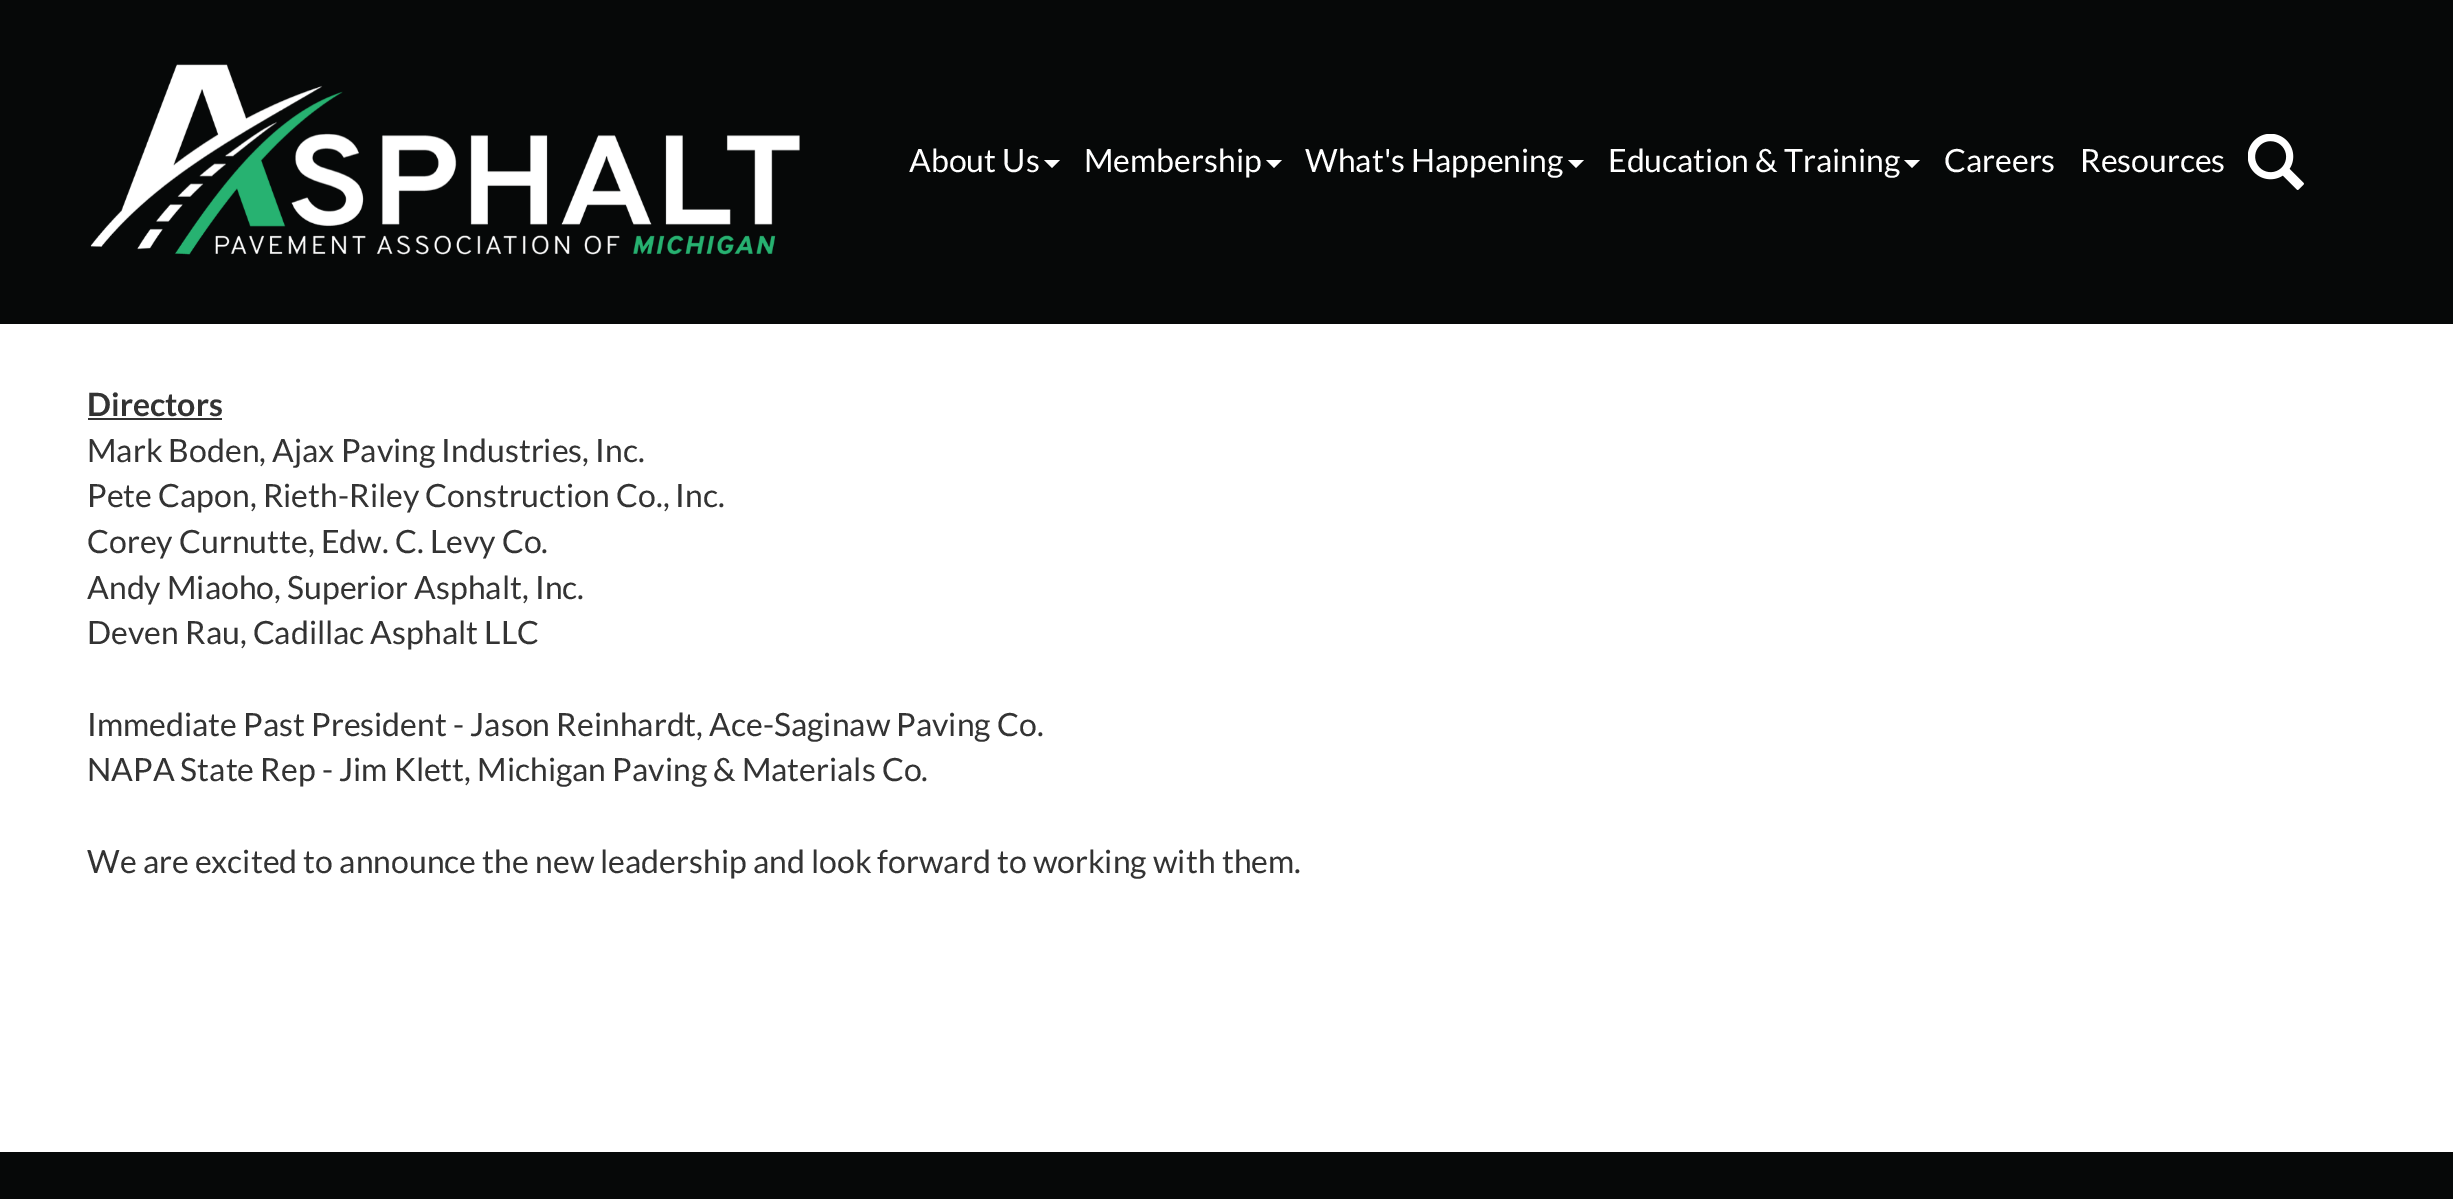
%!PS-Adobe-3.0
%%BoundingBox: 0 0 2453 1199
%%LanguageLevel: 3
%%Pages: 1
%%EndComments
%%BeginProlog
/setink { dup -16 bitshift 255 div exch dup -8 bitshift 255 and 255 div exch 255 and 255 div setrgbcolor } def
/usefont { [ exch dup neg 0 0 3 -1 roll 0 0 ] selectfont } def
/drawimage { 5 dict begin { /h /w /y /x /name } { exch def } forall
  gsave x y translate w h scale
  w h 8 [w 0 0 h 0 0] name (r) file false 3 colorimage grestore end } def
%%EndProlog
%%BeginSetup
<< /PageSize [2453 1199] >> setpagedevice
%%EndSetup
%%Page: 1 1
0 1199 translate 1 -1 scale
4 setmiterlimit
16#FFFFFF setink
0 0 2453 1199 rectfill
16#060808 setink
0 0 2453 324 rectfill
(img1.raw) 90 64 710 191 drawimage
/Lato-Regular 32 usefont
16#FFFFFF setink
909 172 moveto (About Us) show
1044 160 moveto 1060 160 lineto 1052 168 lineto closepath fill
1084 172 moveto (Membership) show
1266 160 moveto 1282 160 lineto 1274 168 lineto closepath fill
1305 172 moveto (What's Happening) show
1568 160 moveto 1584 160 lineto 1576 168 lineto closepath fill
1608 172 moveto (Education & Training) show
1904 160 moveto 1920 160 lineto 1912 168 lineto closepath fill
1944 172 moveto (Careers) show
2080 172 moveto (Resources) show
(img2.raw) 2248 134 56 56 drawimage
/Lato-Bold 32 usefont
16#333333 setink
87 416 moveto (Directors) show
88 418 134 2 rectfill
/Lato-Regular 32 usefont
[
    [(Mark Boden, Ajax Paving Industries, Inc.) 87 462]
    [(Pete Capon, Rieth-Riley Construction Co., Inc.) 87 507]
    [(Corey Curnutte, Edw. C. Levy Co.) 87 553]
    [(Andy Miaoho, Superior Asphalt, Inc.) 87 599]
    [(Deven Rau, Cadillac Asphalt LLC) 87 644]
    [(Immediate Past President - Jason Reinhardt, Ace-Saginaw Paving Co.) 87 736]
    [(NAPA State Rep - Jim Klett, Michigan Paving & Materials Co.) 87 781]
    [(We are excited to announce the new leadership and look forward to working with them.) 87 873]
] { aload pop moveto show } forall
16#060808 setink
0 1152 2453 47 rectfill
showpage
%%EOF
